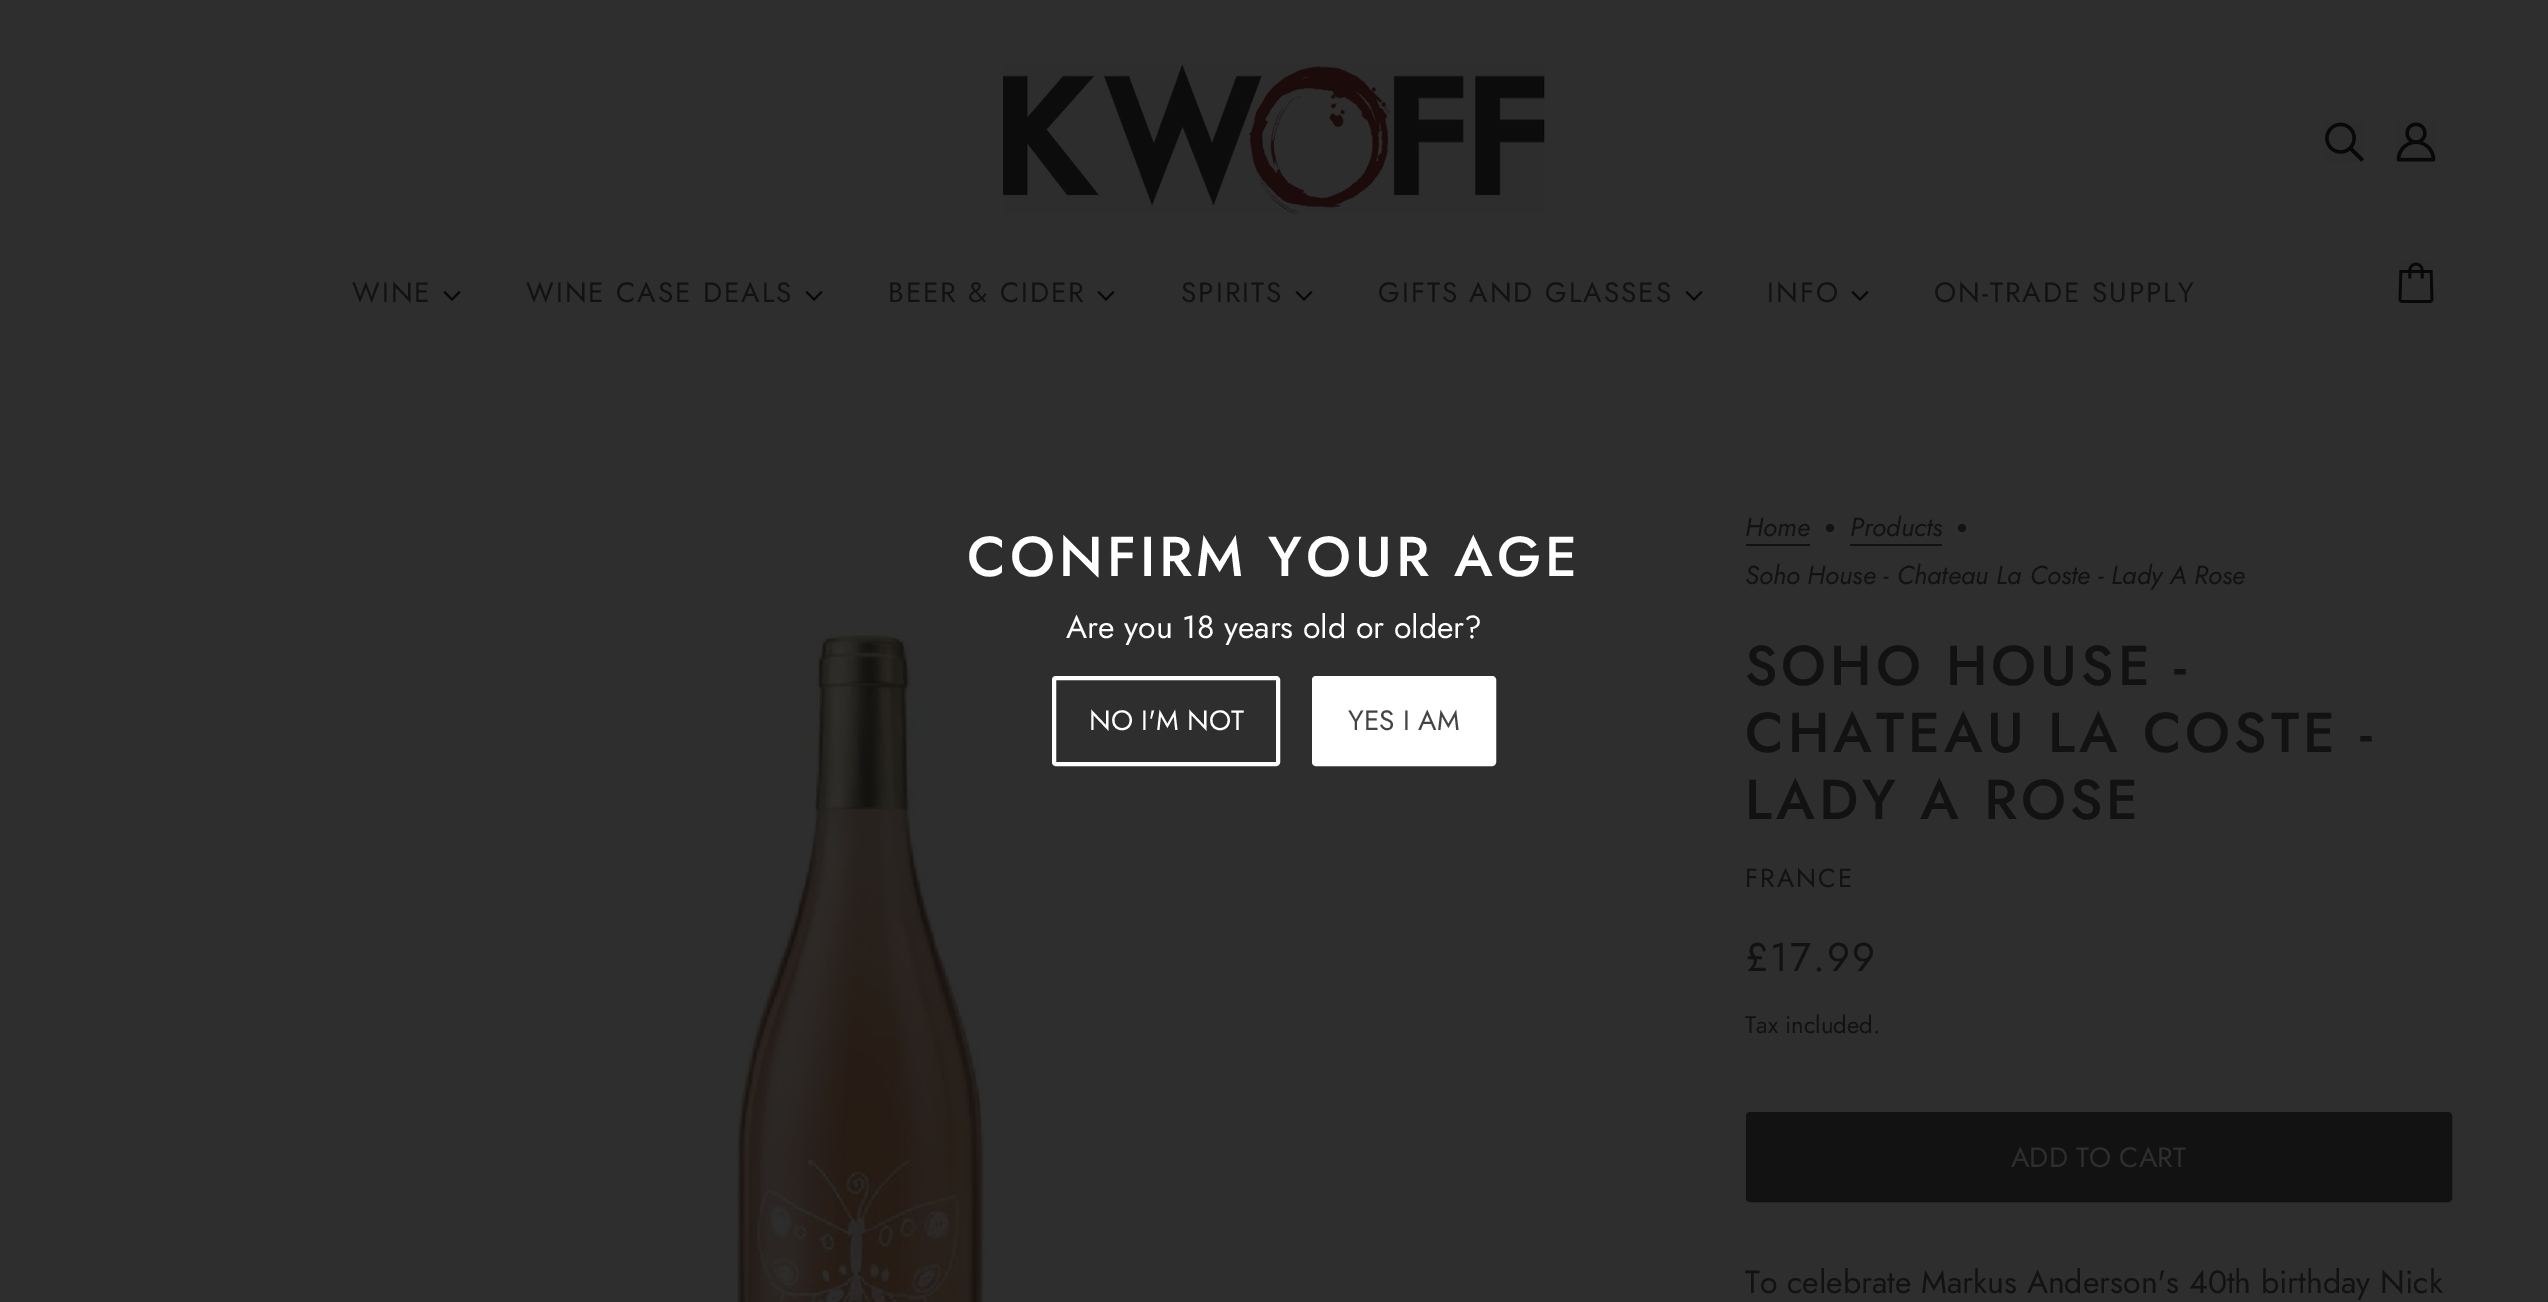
%!PS-Adobe-3.0
%%BoundingBox: 0 0 2548 1302
%%LanguageLevel: 3
%%Pages: 1
%%EndComments
%%BeginProlog
/setink { dup -16 bitshift 255 div exch dup -8 bitshift 255 and 255 div exch 255 and 255 div setrgbcolor } def
/usefont { [ exch dup neg 0 0 3 -1 roll 0 0 ] selectfont } def
/disc { newpath 0 360 arc closepath } def
/rrect { 5 dict begin { /r /h /w /y /x } { exch def } forall
  x r add y moveto x w add y 2 copy h add r arct x w add y h add x 1 index r arct
  x y h add x y r arct x y 2 copy exch w add exch r arct closepath end } def
/drawimage { 5 dict begin { /h /w /y /x /name } { exch def } forall
  gsave x y translate w h scale
  w h 8 [w 0 0 h 0 0] name (r) file false 3 colorimage grestore end } def
%%EndProlog
%%BeginSetup
<< /PageSize [2548 1302] >> setpagedevice
%%EndSetup
%%Page: 1 1
0 1302 translate 1 -1 scale
4 setmiterlimit
16#2E2E2E setink
0 0 2548 1302 rectfill
(img1.raw) 1003 64 542 150 drawimage
(img2.raw) 2325 122 39 40 drawimage
(img3.raw) 2396 122 40 40 drawimage
/Jost-Regular 28 usefont
16#121212 setink
352 302 moveto 2 0 (WINE) ashow
16#080808 setink
452 298 moveto 459 291 lineto 460.5 292.5 lineto 452 301 lineto 443.5 292.5 lineto 445 291 lineto closepath fill
16#121212 setink
526 302 moveto 2 0 (WINE CASE DEALS) ashow
16#080808 setink
814 298 moveto 821 291 lineto 822.5 292.5 lineto 814 301 lineto 805.5 292.5 lineto 807 291 lineto closepath fill
16#121212 setink
888 302 moveto 2 0 (BEER & CIDER) ashow
16#080808 setink
1106 298 moveto 1113 291 lineto 1114.5 292.5 lineto 1106 301 lineto 1097.5 292.5 lineto 1099 291 lineto closepath fill
16#121212 setink
1181 302 moveto 2 0 (SPIRITS) ashow
16#080808 setink
1304 298 moveto 1311 291 lineto 1312.5 292.5 lineto 1304 301 lineto 1295.5 292.5 lineto 1297 291 lineto closepath fill
16#121212 setink
1378 302 moveto 2 0 (GIFTS AND GLASSES) ashow
16#080808 setink
1694 298 moveto 1701 291 lineto 1702.5 292.5 lineto 1694 301 lineto 1685.5 292.5 lineto 1687 291 lineto closepath fill
16#121212 setink
1767 302 moveto 2 0 (INFO) ashow
16#080808 setink
1860 298 moveto 1867 291 lineto 1868.5 292.5 lineto 1860 301 lineto 1851.5 292.5 lineto 1853 291 lineto closepath fill
16#121212 setink
1934 302 moveto 2 0 (ON-TRADE SUPPLY) ashow
(img4.raw) 2398 262 36 41 drawimage
/Jost-Medium 56 usefont
16#FFFFFF setink
967 576 moveto 4 0 (CONFIRM YOUR AGE) ashow
/Jost-Regular 32 usefont
1066 638 moveto (Are you 18 years old or older?) show
4 setlinewidth
1054 678 224 86 2 rrect stroke
/Jost-Regular 28 usefont
1089 730 moveto (NO I'M NOT) show
1314 678 180 86 2 rrect gsave fill grestore
stroke
16#444444 setink
1348 730 moveto (YES I AM) show
(img5.raw) 728 633 261 669 drawimage
/Jost-Italic 26 usefont
16#121212 setink
1745 536 moveto (Home) show
1746 544 64 2 rectfill
1830 528 4 disc fill
1850 536 moveto (Products) show
1850 544 92 2 rectfill
1962 528 4 disc fill
1745 584 moveto (Soho House - Chateau La Coste - Lady A Rose) show
/Jost-Medium 56 usefont
1745 685 moveto 4 0 (SOHO HOUSE -) ashow
1745 752 moveto 4 0 (CHATEAU LA COSTE -) ashow
1745 819 moveto 4 0 (LADY A ROSE) ashow
/Jost-Regular 26 usefont
1745 887 moveto 2 0 (FRANCE) ashow
/Jost-Regular 40 usefont
1745 971 moveto 2 0 (£17.99) ashow
/Jost-Regular 24 usefont
1745 1033 moveto (Tax included.) show
1748 1114 702 86 2 rrect gsave fill grestore
stroke
/Jost-Regular 28 usefont
16#2E2E2E setink
2011 1167 moveto (ADD TO CART) show
/Jost-Regular 32 usefont
16#121212 setink
1745 1293 moveto (To celebrate Markus Anderson's 40th birthday Nick) show
showpage
%%EOF
